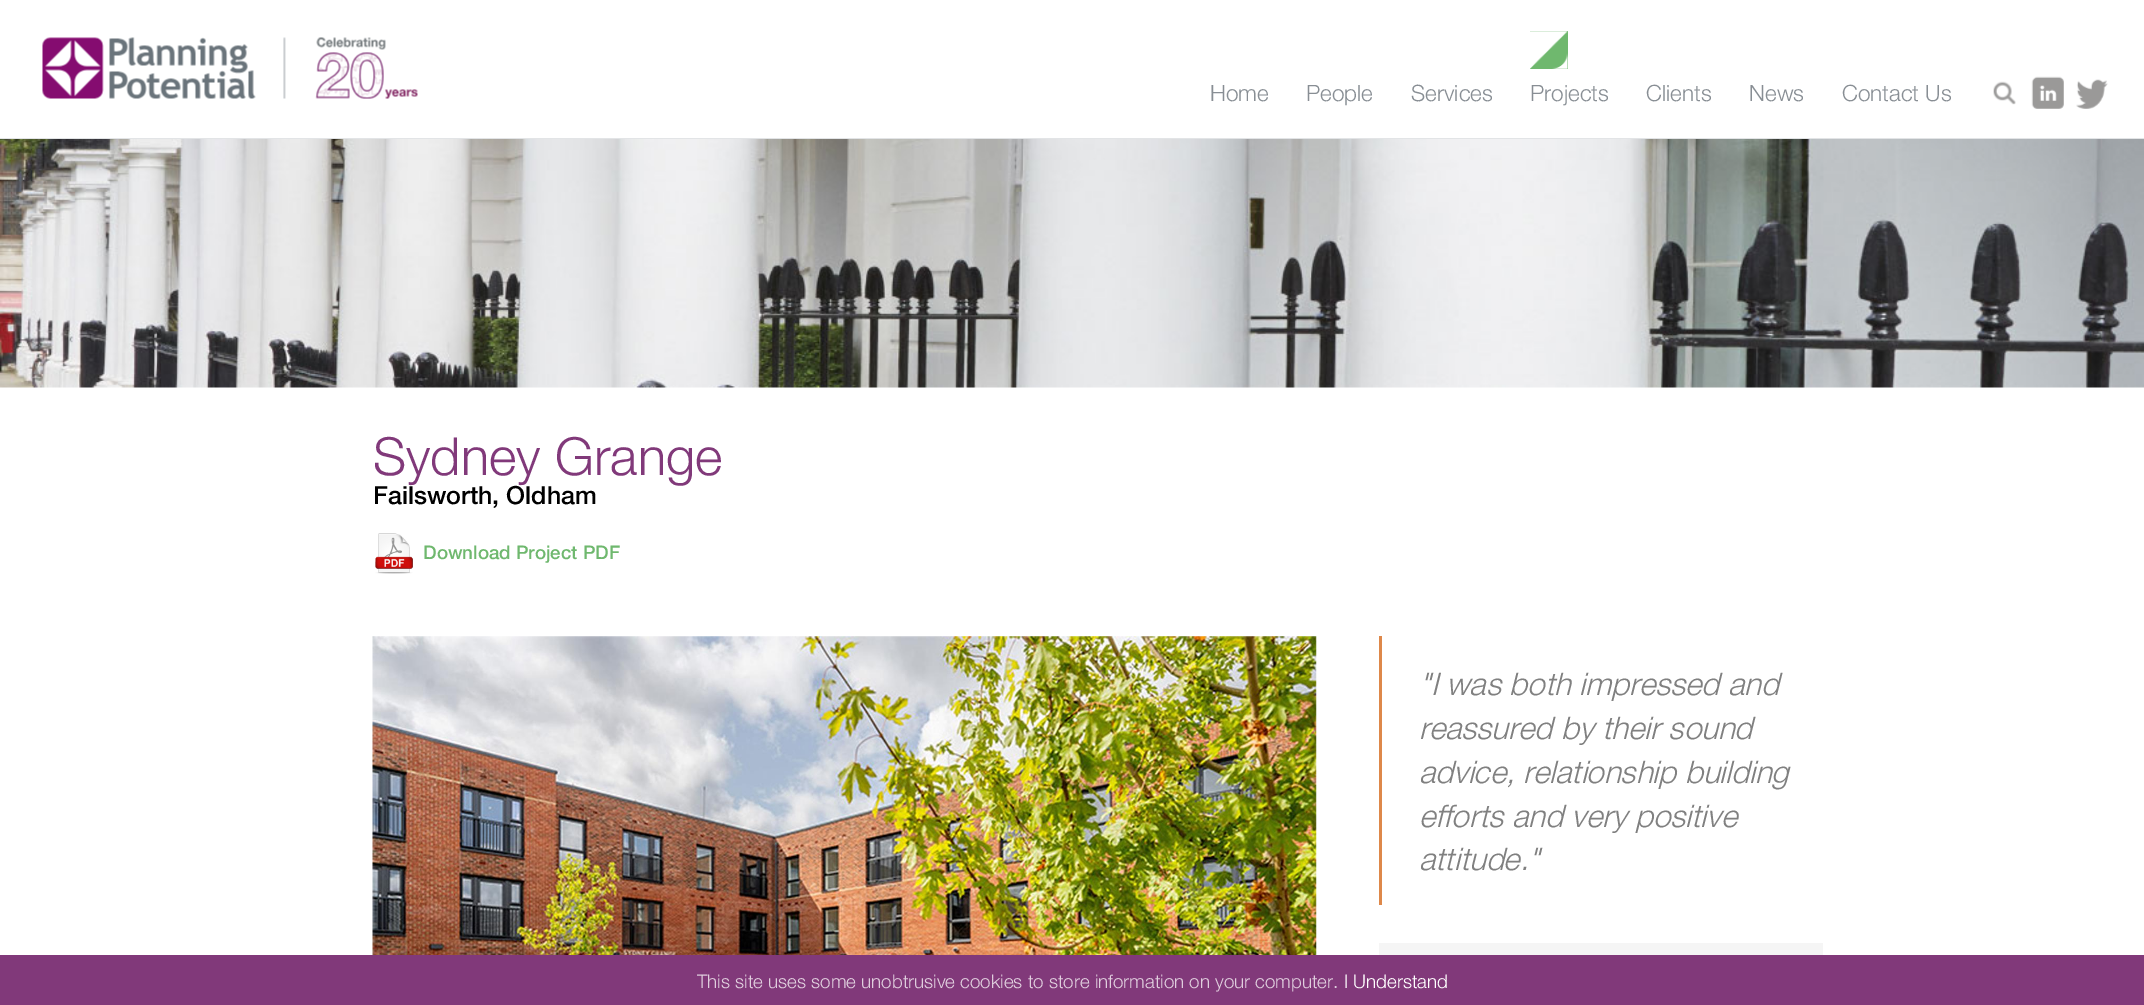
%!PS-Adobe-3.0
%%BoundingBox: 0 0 2144 1005
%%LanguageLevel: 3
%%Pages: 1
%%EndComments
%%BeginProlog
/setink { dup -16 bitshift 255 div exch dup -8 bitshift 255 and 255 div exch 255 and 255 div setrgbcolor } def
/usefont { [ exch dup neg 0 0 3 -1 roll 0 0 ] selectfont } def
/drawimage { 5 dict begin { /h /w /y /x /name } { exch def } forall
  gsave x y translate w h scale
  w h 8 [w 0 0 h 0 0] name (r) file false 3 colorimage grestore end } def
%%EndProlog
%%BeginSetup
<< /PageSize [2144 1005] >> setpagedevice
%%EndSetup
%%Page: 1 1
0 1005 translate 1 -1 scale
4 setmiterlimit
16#FFFFFF setink
0 0 2144 1005 rectfill
16#E2E4E6 setink
0 138 2144 1 rectfill
(img1.raw) 42 37 376 62 drawimage
/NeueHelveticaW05-Light 22.5 usefont
16#888E94 setink
[
    [(Home) 1210 101]
    [(People) 1306 101]
    [(Services) 1411 101]
] { aload pop moveto show } forall
16#6FB86E setink
1530 31 38 38 rectfill
(img2.raw) 1530 31 38 38 drawimage
16#888E94 setink
[
    [(Projects) 1530 101]
    [(Clients) 1646 101]
    [(News) 1749 101]
    [(Contact Us) 1842 101]
] { aload pop moveto show } forall
(img3.raw) 1993 81 23 24 drawimage
(img4.raw) 2031 76 33 33 drawimage
(img5.raw) 2076 79 32 30 drawimage
(img6.raw) 0 139 2144 249 drawimage
/NeueHelveticaW05-Light 52.5 usefont
16#81397A setink
373 475 moveto (Sydney Grange) show
/NeueHelveticaW05-Medium 25 usefont
16#000000 setink
373 504 moveto (Failsworth, Oldham) show
(img7.raw) 375 533 38 41 drawimage
/NeueHelveticaW05-Medium 18.75 usefont
16#6FB86E setink
423 559 moveto (Download Project PDF) show
(img8.raw) 372 636 945 319 drawimage
16#DE884A setink
1379 636 3 269 rectfill
/NeueHelveticaW05-LightItalic 31.25 usefont
16#808080 setink
[
    [("I was both impressed and) 1419 695]
    [(reassured by their sound) 1419 739]
    [(advice, relationship building) 1419 783]
    [(efforts and very positive) 1419 827]
    [(attitude.") 1419 870]
] { aload pop moveto show } forall
16#F5F5F5 setink
1379 943 444 12 rectfill
16#81397A setink
0 955 2144 50 rectfill
/NeueHelveticaW05-Light 18.75 usefont
16#E0CEDE setink
697 988 moveto (This site uses some unobtrusive cookies to store information on your computer.) show
16#FFFFFF setink
1344 988 moveto (I Understand) show
showpage
%%EOF
